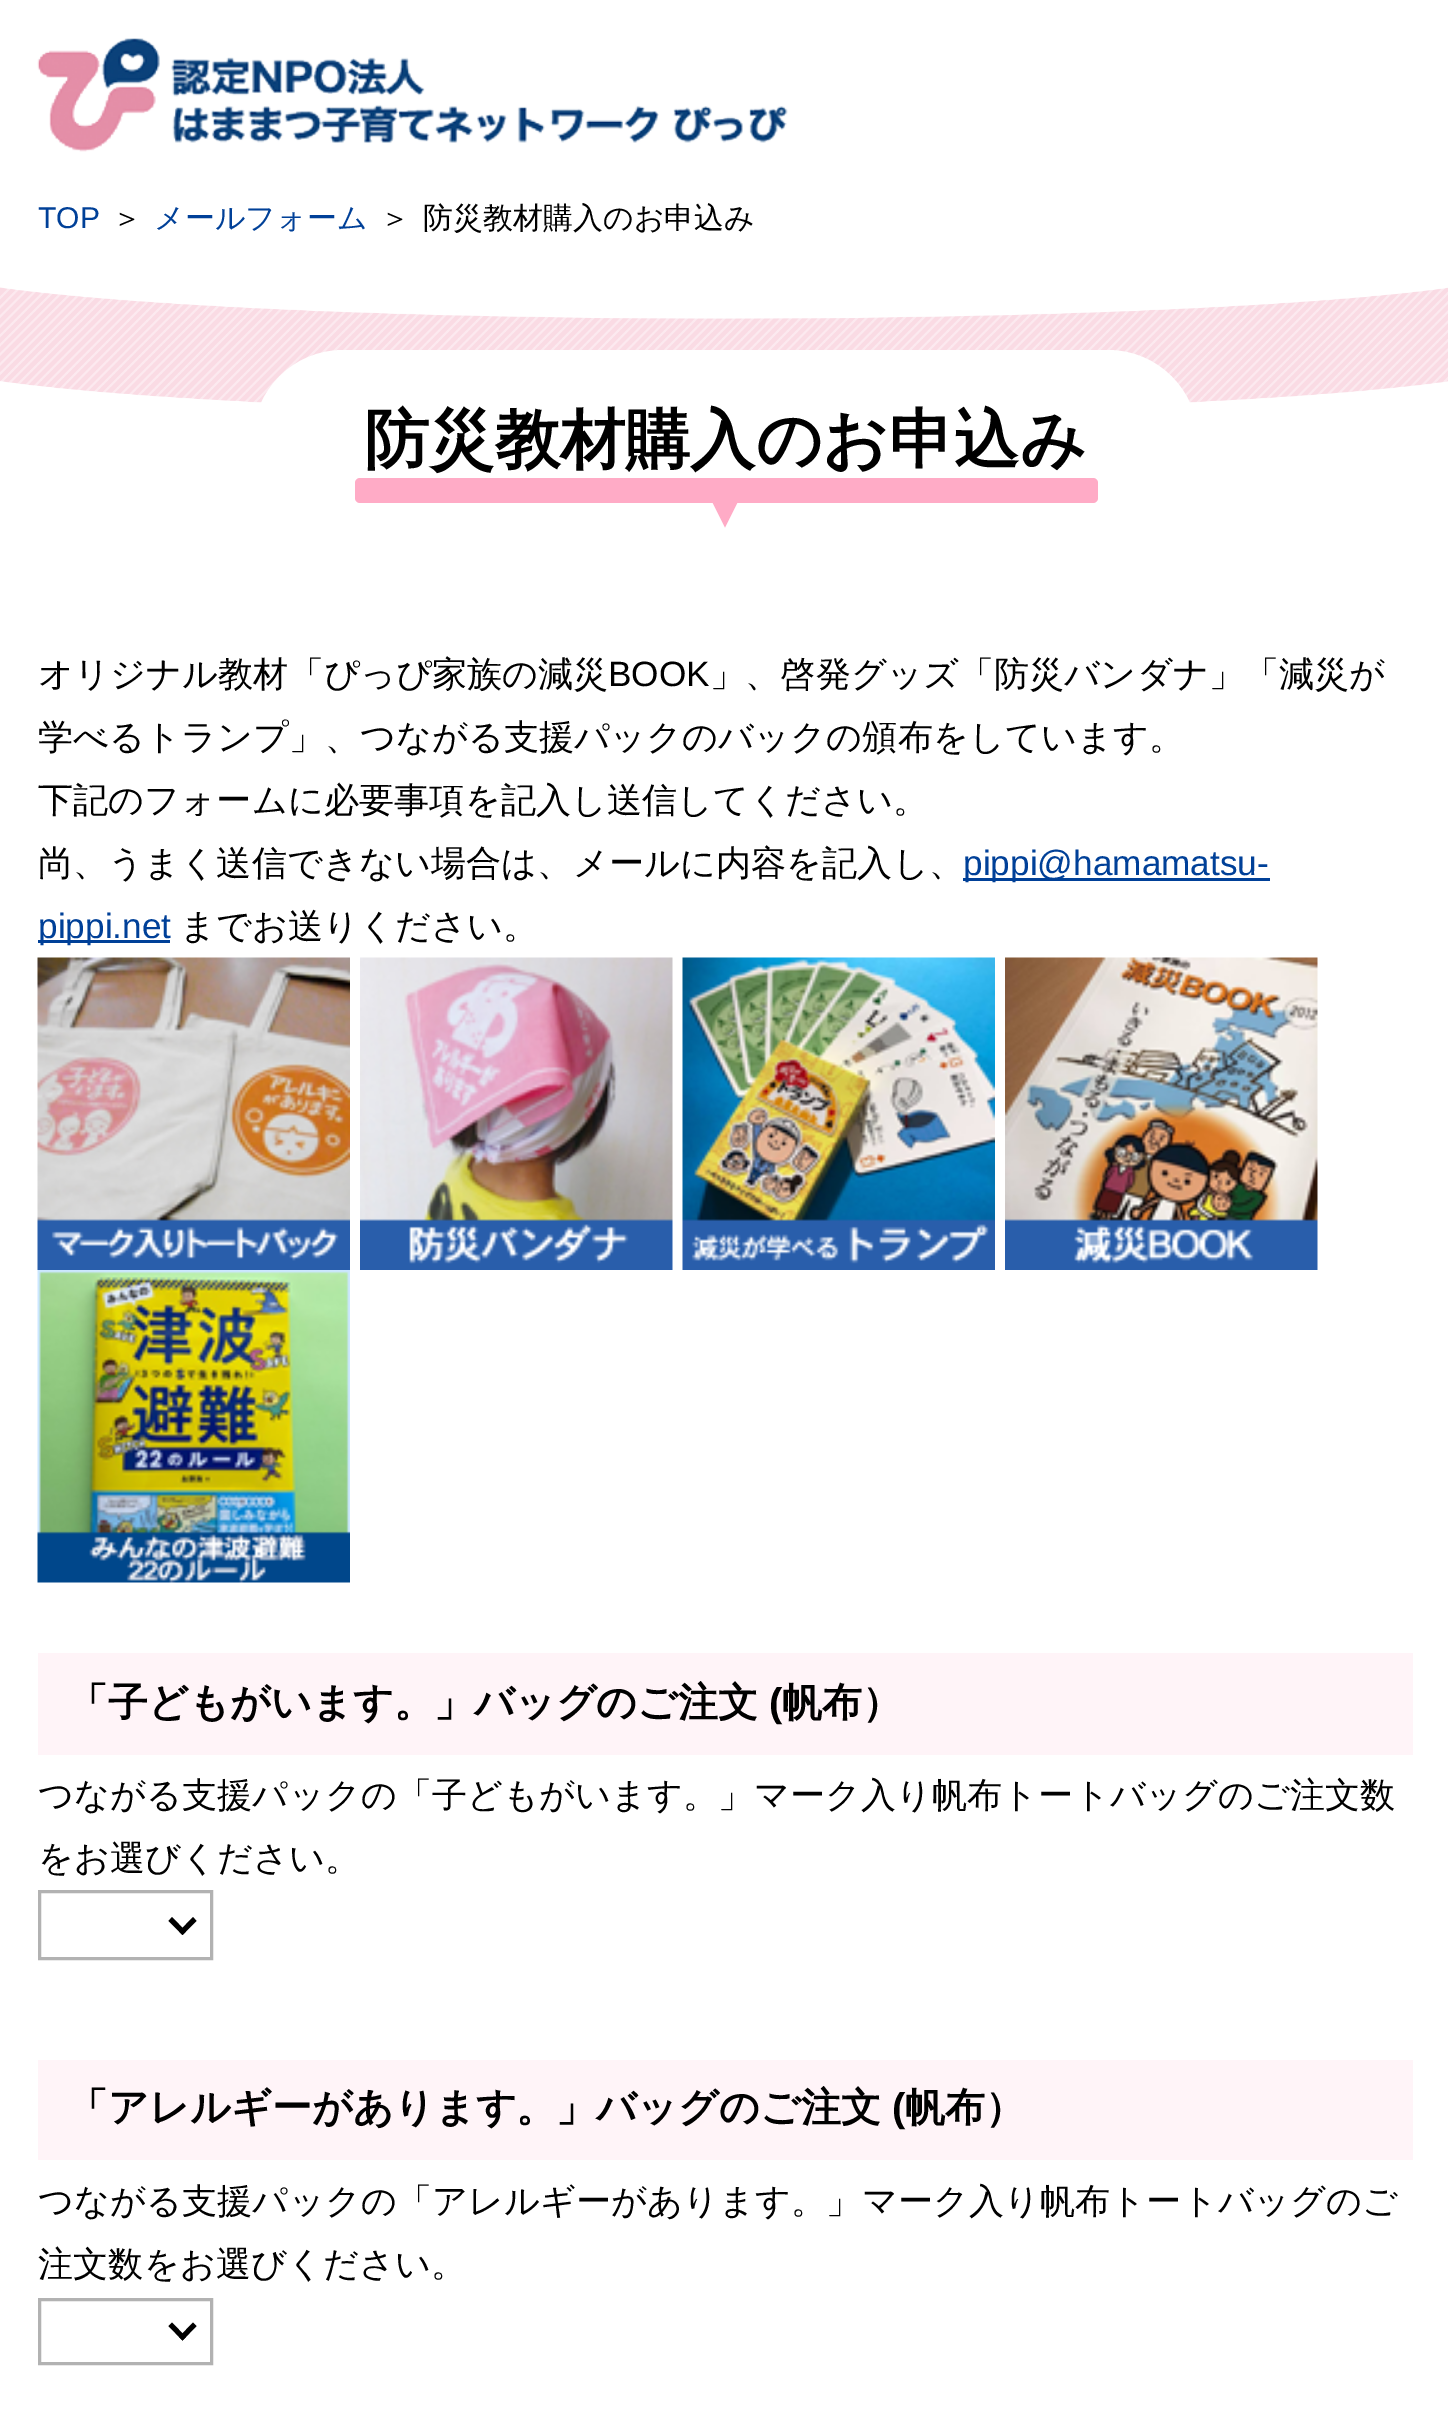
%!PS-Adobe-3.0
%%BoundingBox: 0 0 1448 2410
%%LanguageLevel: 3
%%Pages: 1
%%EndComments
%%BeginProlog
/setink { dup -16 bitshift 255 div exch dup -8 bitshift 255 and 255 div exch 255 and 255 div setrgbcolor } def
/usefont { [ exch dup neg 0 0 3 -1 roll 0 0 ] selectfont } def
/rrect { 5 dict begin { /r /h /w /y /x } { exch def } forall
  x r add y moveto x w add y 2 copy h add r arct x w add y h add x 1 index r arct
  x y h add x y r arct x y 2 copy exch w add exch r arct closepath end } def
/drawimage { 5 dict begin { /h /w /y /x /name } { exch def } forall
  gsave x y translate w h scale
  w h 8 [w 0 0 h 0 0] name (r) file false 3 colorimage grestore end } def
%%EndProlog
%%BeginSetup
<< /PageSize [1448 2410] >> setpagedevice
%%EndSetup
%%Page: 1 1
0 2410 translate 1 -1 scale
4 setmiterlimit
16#FFFFFF setink
0 0 1448 2410 rectfill
(img1.raw) 37 38 751 114 drawimage
/LiberationSans-Regular 30 usefont
16#004098 setink
38 228 moveto (TOP) show
/WenQuanYiZenHei-Medium 30 usefont
16#000000 setink
112 228 moveto (＞) show
16#004098 setink
154 228 moveto (メールフォーム) show
16#000000 setink
380 228 moveto (＞) show
423 228 moveto (防災教材購入のお申込み) show
(img2.raw) 0 287 1448 126 drawimage
16#FFFFFF setink
253 350 945 180 90 rrect fill
/WenQuanYiZenHei-Bold 65.25 usefont
16#000000 setink
364 462 moveto (防災教材購入のお申込み) show
16#FFABC6 setink
355 478 743 25 5 rrect fill
712.5 502.5 moveto 737.5 502.5 lineto 725 527.5 lineto closepath fill
/WenQuanYiZenHei-Medium 35.2 usefont
16#000000 setink
38 686 moveto (オリジナル教材「ぴっぴ家族の減災) show
/LiberationSans-Regular 35.2 usefont
608 686 moveto (BOOK) show
/WenQuanYiZenHei-Medium 35.2 usefont
[
    [(」、啓発グッズ「防災バンダナ」「減災が) 710 686]
    [(学べるトランプ」、つながる支援パックのバックの頒布をしています。) 38 749]
    [(下記のフォームに必要事項を記入し送信してください。) 38 812]
    [(尚、うまく送信できない場合は、メールに内容を記入し、) 38 875]
] { aload pop moveto show } forall
16#004098 setink
963 878 307 3 rectfill
/LiberationSans-Regular 35.2 usefont
963 875 moveto (pippi@hamamatsu-) show
38 940 132 3 rectfill
38 938 moveto (pippi.net) show
/WenQuanYiZenHei-Medium 35.2 usefont
16#000000 setink
180 938 moveto (までお送りください。) show
(img3.raw) 37 957 313 313 drawimage
(img4.raw) 360 957 313 313 drawimage
(img5.raw) 682 957 313 313 drawimage
(img6.raw) 1005 957 313 313 drawimage
(img7.raw) 37 1270 313 313 drawimage
16#FFF4F8 setink
38 1653 1375 102 rectfill
/WenQuanYiZenHei-Bold 40 usefont
16#000000 setink
68 1716 moveto (「子どもがいます。」バッグのご注文) show
/LiberationSans-Bold 40 usefont
769 1716 moveto (\() show
/WenQuanYiZenHei-Bold 40 usefont
782 1716 moveto (帆布）) show
/WenQuanYiZenHei-Medium 35.2 usefont
38 1807 moveto (つながる支援パックの「子どもがいます。」マーク入り帆布トートバッグのご注文数) show
38 1870 moveto (をお選びください。) show
16#B2B2B2 setink
3 setlinewidth
39.5 1891.5 172 67 rectstroke
16#000000 setink
196.5 1921 moveto 182.5 1935 lineto 179 1931.5 lineto 193 1917 lineto closepath fill
186 1931.5 moveto 182.5 1935 lineto 168.5 1921 lineto 172 1917 lineto closepath fill
16#FFF4F8 setink
38 2060 1375 100 rectfill
/WenQuanYiZenHei-Bold 40 usefont
16#000000 setink
68 2121 moveto (「アレルギーがあります。」バッグのご注文) show
/LiberationSans-Bold 40 usefont
892 2121 moveto (\() show
/WenQuanYiZenHei-Bold 40 usefont
905 2121 moveto (帆布）) show
/WenQuanYiZenHei-Medium 35.2 usefont
38 2213 moveto (つながる支援パックの「アレルギーがあります。」マーク入り帆布トートバッグのご) show
38 2276 moveto (注文数をお選びください。) show
16#B2B2B2 setink
39.5 2299.5 172 64 rectstroke
16#000000 setink
196.5 2326 moveto 182.5 2340.5 lineto 179 2337 lineto 193 2322.5 lineto closepath fill
186 2337 moveto 182.5 2340.5 lineto 168.5 2326 lineto 172 2322.5 lineto closepath fill
showpage
%%EOF
